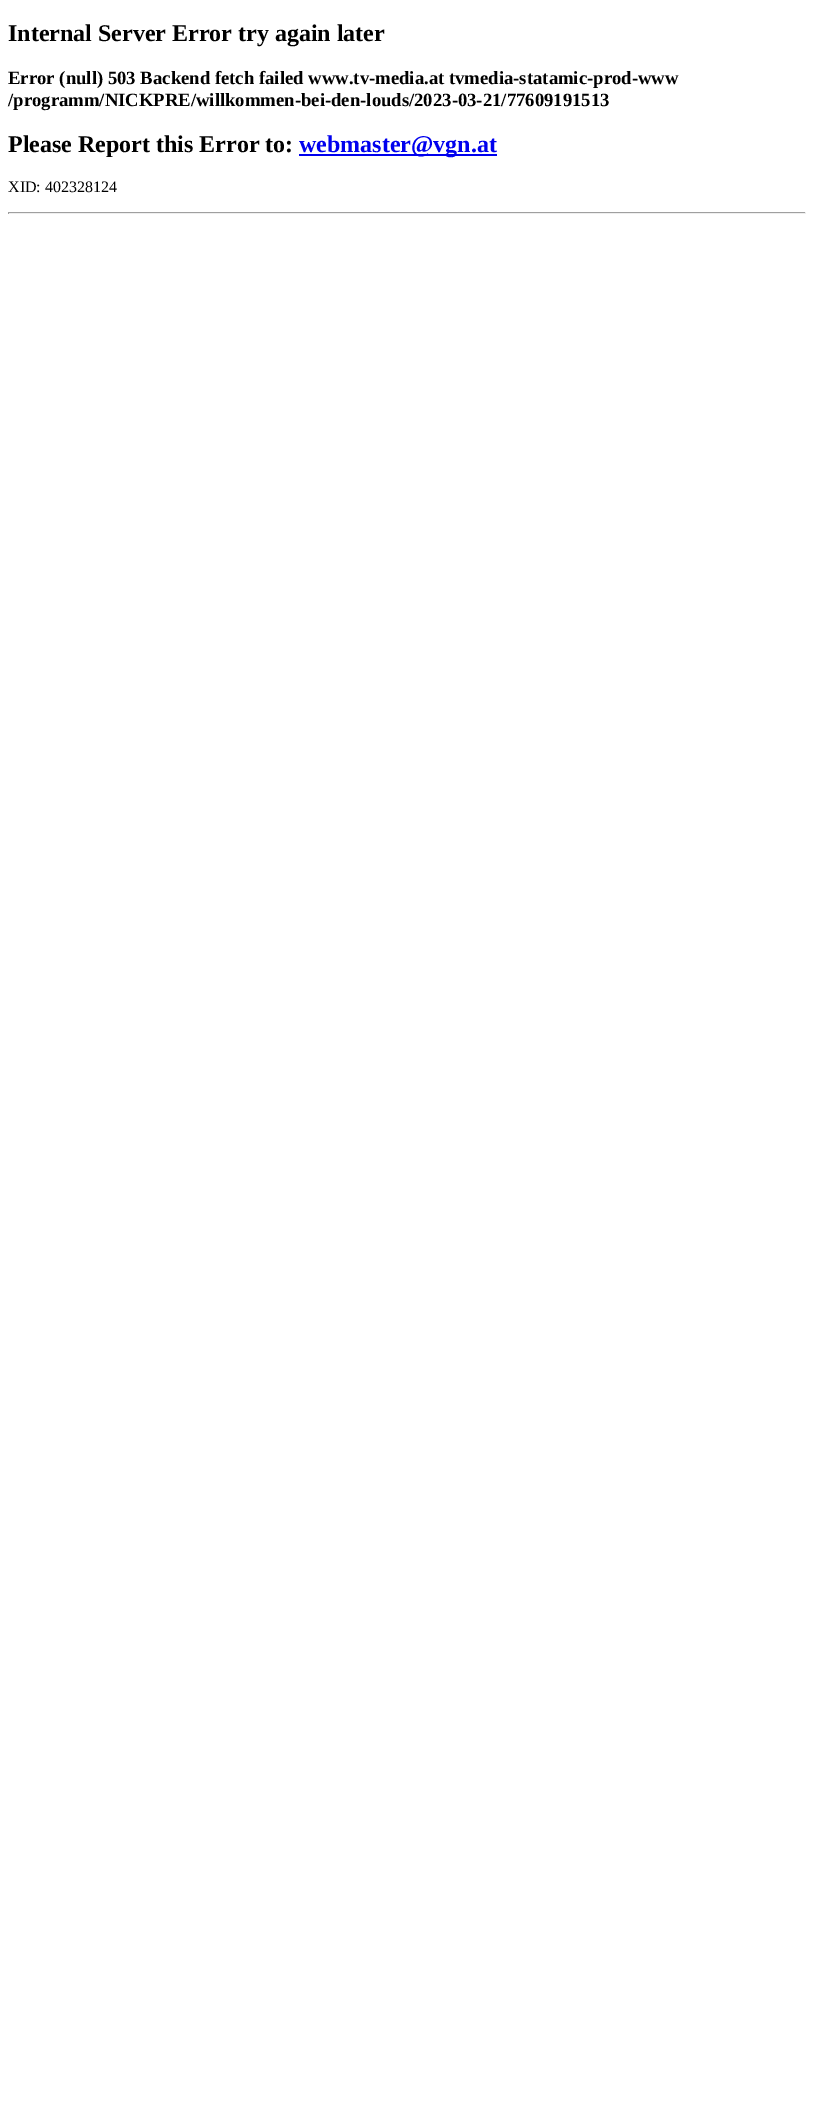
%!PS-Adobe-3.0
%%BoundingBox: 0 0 814 2121
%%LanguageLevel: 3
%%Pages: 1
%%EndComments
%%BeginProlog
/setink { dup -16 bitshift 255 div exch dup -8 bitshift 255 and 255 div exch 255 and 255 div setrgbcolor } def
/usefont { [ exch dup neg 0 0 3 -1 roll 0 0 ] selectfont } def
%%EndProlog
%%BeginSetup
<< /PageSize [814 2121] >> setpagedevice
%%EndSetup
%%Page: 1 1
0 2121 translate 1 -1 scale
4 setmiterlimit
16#FFFFFF setink
0 0 814 2121 rectfill
/LiberationSerif-Bold 24 usefont
16#000000 setink
8 41 moveto (Internal Server Error try again later) show
/LiberationSerif-Bold 18.7 usefont
8 84 moveto (Error \(null\) 503 Backend fetch failed www.tv-media.at tvmedia-statamic-prod-www) show
8 106 moveto (/programm/NICKPRE/willkommen-bei-den-louds/2023-03-21/77609191513) show
/LiberationSerif-Bold 24 usefont
8 152 moveto (Please Report this Error to:) show
16#0000EE setink
299 154 198 2 rectfill
299 152 moveto (webmaster@vgn.at) show
/LiberationSerif-Regular 16 usefont
16#000000 setink
8 192 moveto (XID: 402328124) show
[
    [8 212 798 1 16#9F9F9F]
    [805 212 1 2 16#EEEEEE]
    [8 213 798 1 16#EEEEEE]
    [8 212 1 2 16#9F9F9F]
] { aload pop setink rectfill } forall
showpage
%%EOF
